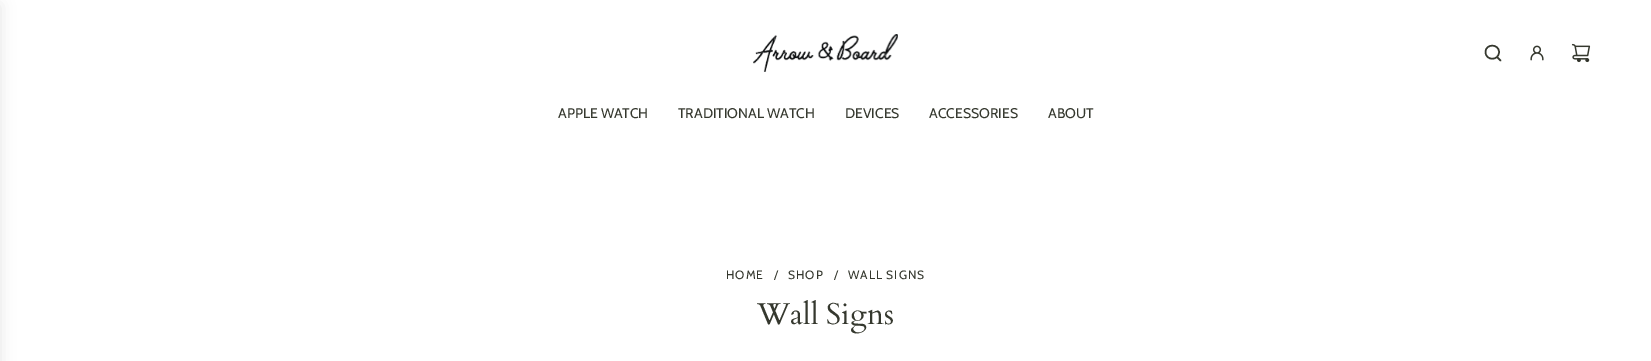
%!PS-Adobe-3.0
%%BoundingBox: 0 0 1651 361
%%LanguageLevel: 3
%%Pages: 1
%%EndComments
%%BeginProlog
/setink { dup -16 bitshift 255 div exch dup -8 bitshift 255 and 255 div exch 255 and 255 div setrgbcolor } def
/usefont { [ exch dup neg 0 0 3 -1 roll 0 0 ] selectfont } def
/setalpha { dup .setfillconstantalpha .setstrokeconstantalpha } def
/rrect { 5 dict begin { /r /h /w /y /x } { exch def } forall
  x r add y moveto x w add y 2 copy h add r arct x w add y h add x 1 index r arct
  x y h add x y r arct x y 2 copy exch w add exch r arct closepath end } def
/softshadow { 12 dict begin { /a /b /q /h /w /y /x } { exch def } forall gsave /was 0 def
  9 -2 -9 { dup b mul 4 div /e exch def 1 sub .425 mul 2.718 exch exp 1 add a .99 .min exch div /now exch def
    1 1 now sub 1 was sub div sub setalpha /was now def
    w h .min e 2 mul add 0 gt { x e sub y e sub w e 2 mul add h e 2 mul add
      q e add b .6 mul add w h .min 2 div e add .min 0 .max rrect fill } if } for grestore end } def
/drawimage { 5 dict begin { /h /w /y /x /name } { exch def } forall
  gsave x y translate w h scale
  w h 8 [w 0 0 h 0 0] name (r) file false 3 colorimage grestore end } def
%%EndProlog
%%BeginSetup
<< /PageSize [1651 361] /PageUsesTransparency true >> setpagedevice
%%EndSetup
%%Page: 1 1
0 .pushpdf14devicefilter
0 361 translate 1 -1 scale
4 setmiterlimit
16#FFFFFF setink
0 0 1651 361 rectfill
16#000000 setink
-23 5 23 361 0 7.5 0.1 softshadow
(img1.raw) 753 34 145 38 drawimage
16#35382E setink
1.5 setlinewidth
1 setlinecap
1 setlinejoin
1497 57 moveto 1500.5 60.5 lineto 1485.5 52 moveto 1485.5 61 1499 61 1499 52 curveto 1499 43.5 1485.5 43.5 1485.5 52 curveto closepath stroke
(img2.raw) 1530 45 14 16 drawimage
(img3.raw) 1571 43 20 20 drawimage
/Cabin-Regular 14 usefont
[
    [(APPLE WATCH) 558 118]
    [(TRADITIONAL WATCH) 678 118]
    [(DEVICES) 845 118]
    [(ACCESSORIES) 929 118]
    [(ABOUT) 1048 118]
] { aload pop moveto show } forall
/Cabin-Regular 12 usefont
726 279 moveto 1 0 (HOME) ashow
774 279 moveto (/) show
788 279 moveto 1 0 (SHOP) ashow
834 279 moveto (/) show
848 279 moveto 1 0 (WALL SIGNS) ashow
/Cardo-Regular 30 usefont
757 324 moveto (Wall Signs) show
.poppdf14devicefilter showpage
%%EOF
